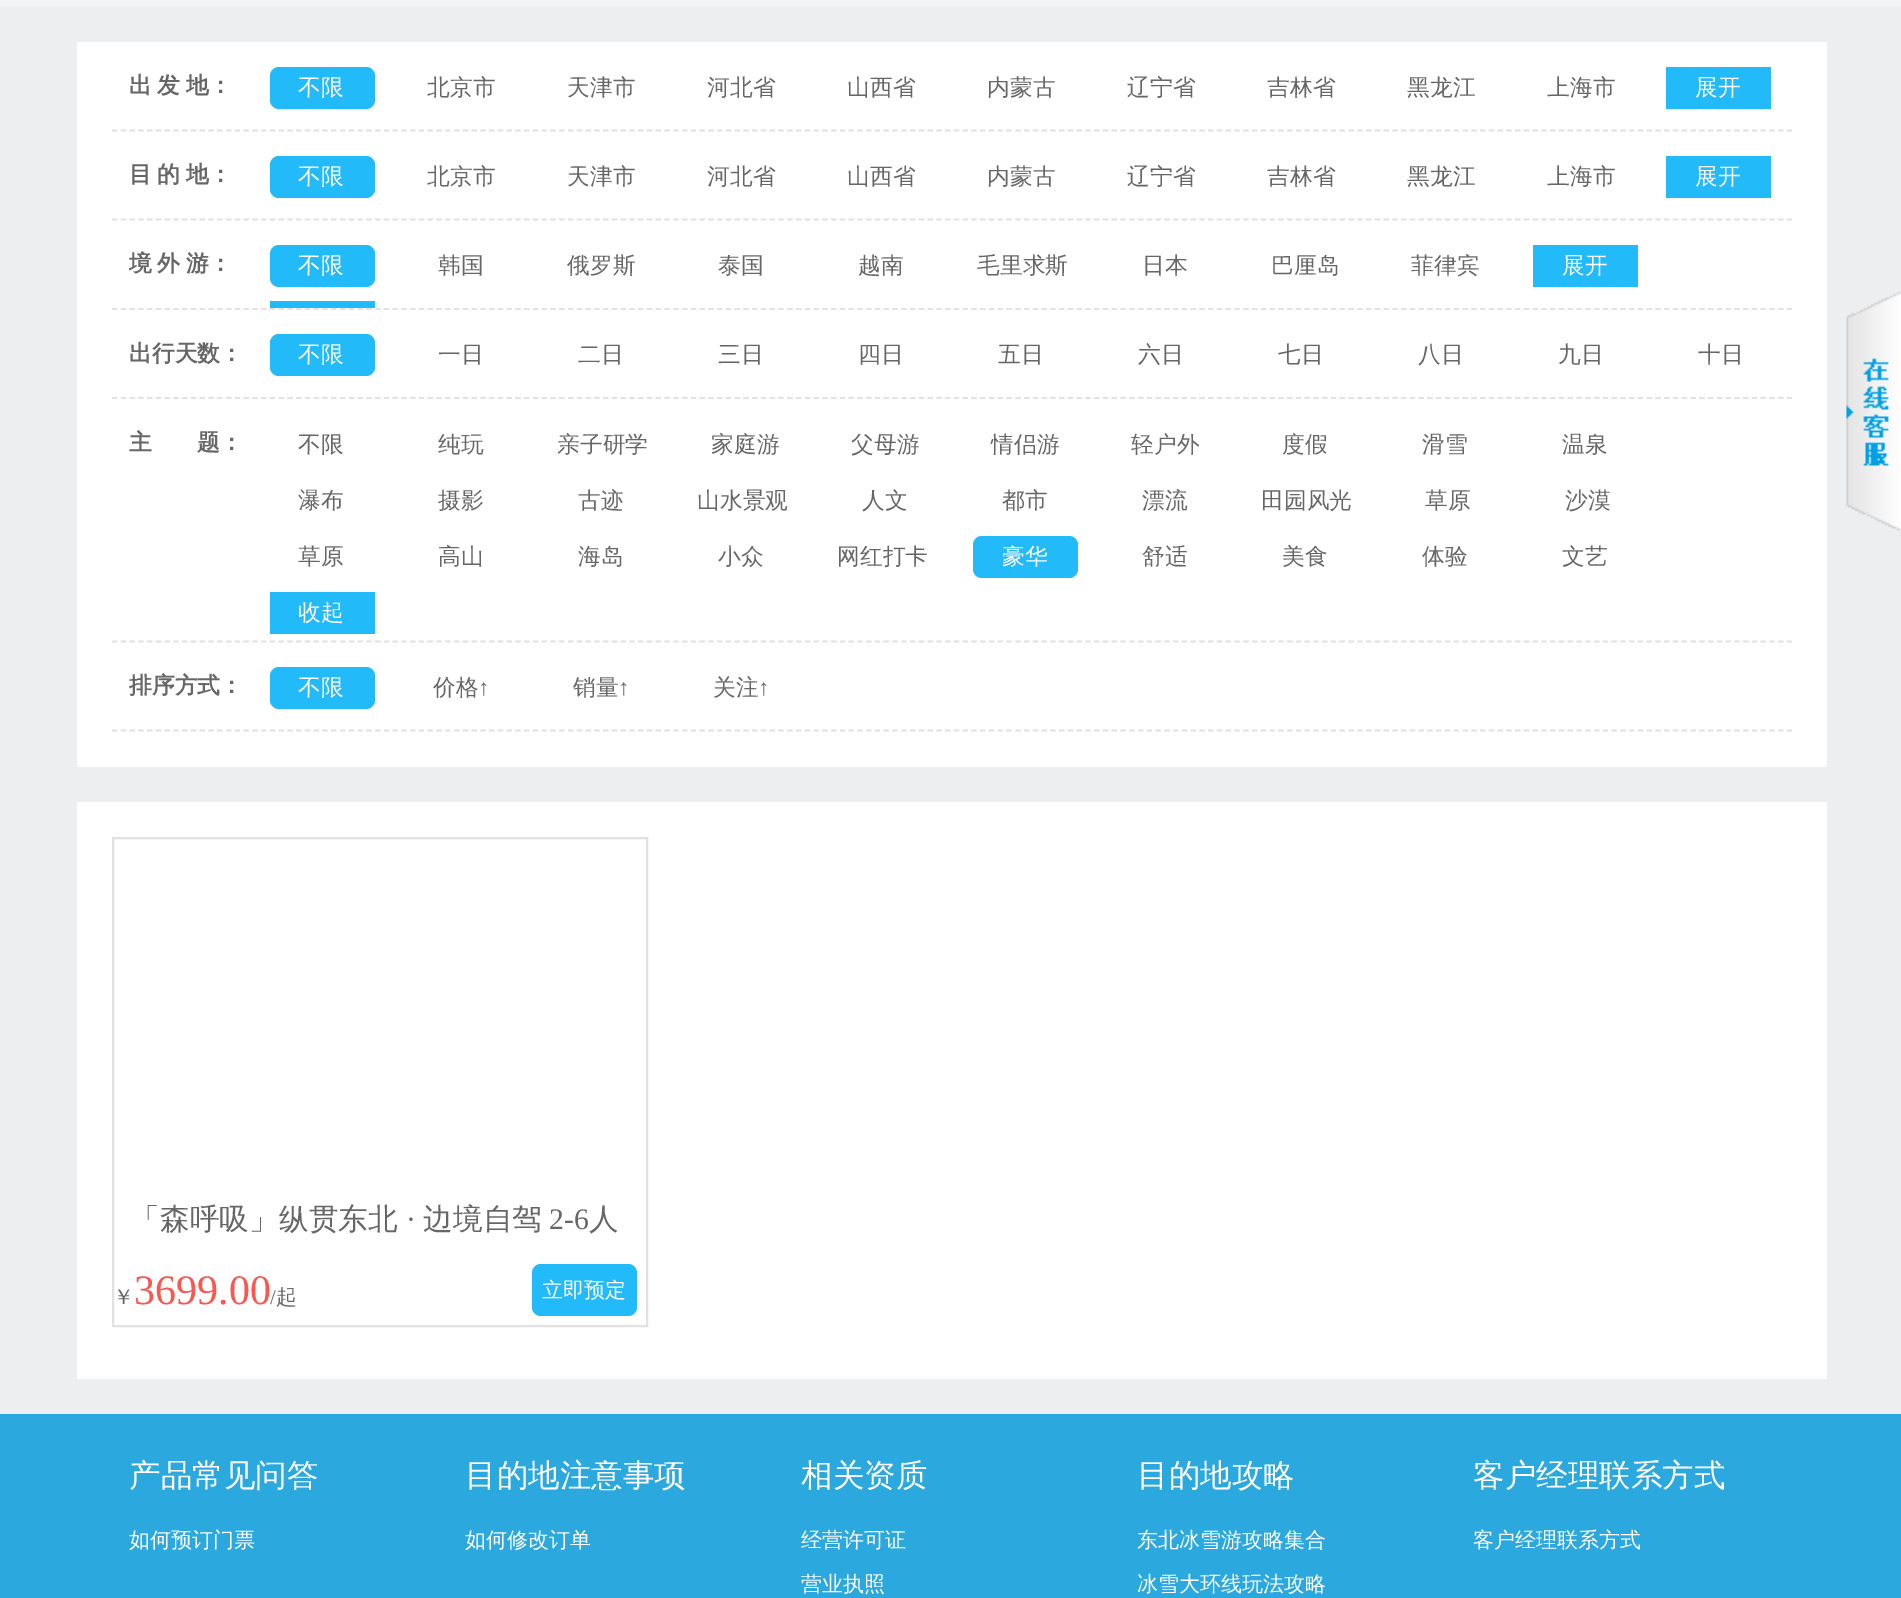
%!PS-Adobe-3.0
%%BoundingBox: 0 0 1901 1598
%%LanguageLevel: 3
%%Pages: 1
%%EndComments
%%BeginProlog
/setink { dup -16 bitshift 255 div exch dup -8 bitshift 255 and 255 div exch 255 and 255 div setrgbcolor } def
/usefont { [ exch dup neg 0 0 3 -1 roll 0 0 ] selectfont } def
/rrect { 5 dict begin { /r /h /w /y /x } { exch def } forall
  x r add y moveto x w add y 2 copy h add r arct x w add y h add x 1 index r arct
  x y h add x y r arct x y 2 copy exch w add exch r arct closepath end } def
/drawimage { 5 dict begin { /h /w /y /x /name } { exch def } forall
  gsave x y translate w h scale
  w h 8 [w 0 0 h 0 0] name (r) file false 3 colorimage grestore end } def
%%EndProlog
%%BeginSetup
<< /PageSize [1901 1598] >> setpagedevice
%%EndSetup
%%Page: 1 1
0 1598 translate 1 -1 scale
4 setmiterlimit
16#EDEEF0 setink
0 0 1901 1598 rectfill
16#F2F3F5 setink
0 0 1901 7 rectfill
16#FFFFFF setink
77 42 1750 725 rectfill
16#E2E2E2 setink
1.8 setlinewidth
[5.25 3.52] 0 setdash
112 130.5 moveto 1792 130.5 lineto stroke
/WenQuanYiZenHei-Bold 22.75 usefont
16#666666 setink
[
    [(出) 129 93]
    [(发) 157 93]
    [(地：) 186 93]
] { aload pop moveto show } forall
16#23BAF9 setink
270 67 105 42 9 rrect fill
/WenQuanYiZenHei-Medium 22.75 usefont
16#FFFFFF setink
298 95 moveto (不限) show
16#666666 setink
[
    [(北京市) 427 95]
    [(天津市) 567 95]
    [(河北省) 707 95]
    [(山西省) 847 95]
    [(内蒙古) 987 95]
    [(辽宁省) 1127 95]
    [(吉林省) 1267 95]
    [(黑龙江) 1407 95]
    [(上海市) 1547 95]
] { aload pop moveto show } forall
16#23BAF9 setink
1666 67 105 42 rectfill
16#FFFFFF setink
1695 95 moveto (展开) show
16#E2E2E2 setink
112 219.5 moveto 1792 219.5 lineto stroke
/WenQuanYiZenHei-Bold 22.75 usefont
16#666666 setink
[
    [(目) 129 182]
    [(的) 157 182]
    [(地：) 186 182]
] { aload pop moveto show } forall
16#23BAF9 setink
270 156 105 42 9 rrect fill
/WenQuanYiZenHei-Medium 22.75 usefont
16#FFFFFF setink
298 184 moveto (不限) show
16#666666 setink
[
    [(北京市) 427 184]
    [(天津市) 567 184]
    [(河北省) 707 184]
    [(山西省) 847 184]
    [(内蒙古) 987 184]
    [(辽宁省) 1127 184]
    [(吉林省) 1267 184]
    [(黑龙江) 1407 184]
    [(上海市) 1547 184]
] { aload pop moveto show } forall
16#23BAF9 setink
1666 156 105 42 rectfill
16#FFFFFF setink
1695 184 moveto (展开) show
16#E2E2E2 setink
112 309 moveto 1792 309 lineto stroke
/WenQuanYiZenHei-Bold 22.75 usefont
16#666666 setink
[
    [(境) 129 271]
    [(外) 157 271]
    [(游：) 186 271]
] { aload pop moveto show } forall
16#23BAF9 setink
270 245 105 42 9 rrect fill
/WenQuanYiZenHei-Medium 22.75 usefont
16#FFFFFF setink
298 273 moveto (不限) show
16#666666 setink
[
    [(韩国) 438 273]
    [(俄罗斯) 567 273]
    [(泰国) 718 273]
    [(越南) 858 273]
    [(毛里求斯) 977 273]
    [(日本) 1142 273]
    [(巴厘岛) 1271 273]
    [(菲律宾) 1411 273]
] { aload pop moveto show } forall
16#23BAF9 setink
1533 245 105 42 rectfill
16#FFFFFF setink
1562 273 moveto (展开) show
16#23BAF9 setink
270 301 105 7 rectfill
16#E2E2E2 setink
112 398 moveto 1792 398 lineto stroke
/WenQuanYiZenHei-Bold 22.75 usefont
16#666666 setink
129 361 moveto (出行天数：) show
16#23BAF9 setink
270 334 105 42 9 rrect fill
/WenQuanYiZenHei-Medium 22.75 usefont
16#FFFFFF setink
298 362 moveto (不限) show
16#666666 setink
[
    [(一日) 438 362]
    [(二日) 578 362]
    [(三日) 718 362]
    [(四日) 858 362]
    [(五日) 998 362]
    [(六日) 1138 362]
    [(七日) 1278 362]
    [(八日) 1418 362]
    [(九日) 1558 362]
    [(十日) 1698 362]
] { aload pop moveto show } forall
16#E2E2E2 setink
112 641.5 moveto 1792 641.5 lineto stroke
/WenQuanYiZenHei-Bold 22.75 usefont
16#666666 setink
129 450 moveto (主　　题：) show
/WenQuanYiZenHei-Medium 22.75 usefont
[
    [(不限) 298 452]
    [(纯玩) 438 452]
    [(亲子研学) 557 452]
    [(家庭游) 711 452]
    [(父母游) 851 452]
    [(情侣游) 991 452]
    [(轻户外) 1131 452]
    [(度假) 1282 452]
    [(滑雪) 1422 452]
    [(温泉) 1562 452]
    [(瀑布) 298 508]
    [(摄影) 438 508]
    [(古迹) 578 508]
    [(山水景观) 697 508]
    [(人文) 862 508]
    [(都市) 1002 508]
    [(漂流) 1142 508]
    [(田园风光) 1261 508]
    [(草原) 1425 508]
    [(沙漠) 1565 508]
    [(草原) 298 564]
    [(高山) 438 564]
    [(海岛) 578 564]
    [(小众) 718 564]
    [(网红打卡) 837 564]
] { aload pop moveto show } forall
16#23BAF9 setink
973 536 105 42 9 rrect fill
16#FFFFFF setink
1002 564 moveto (豪华) show
16#666666 setink
[
    [(舒适) 1142 564]
    [(美食) 1282 564]
    [(体验) 1422 564]
    [(文艺) 1562 564]
] { aload pop moveto show } forall
16#23BAF9 setink
270 592 105 42 rectfill
16#FFFFFF setink
298 620 moveto (收起) show
16#E2E2E2 setink
112 730.5 moveto 1792 730.5 lineto stroke
/WenQuanYiZenHei-Bold 22.75 usefont
16#666666 setink
129 693 moveto (排序方式：) show
16#23BAF9 setink
270 667 105 42 9 rrect fill
/WenQuanYiZenHei-Medium 22.75 usefont
16#FFFFFF setink
298 695 moveto (不限) show
16#666666 setink
433 695 moveto (价格) show
/LiberationSerif-Regular 22.75 usefont
478 695 moveto (↑) show
/WenQuanYiZenHei-Medium 22.75 usefont
573 695 moveto (销量) show
/LiberationSerif-Regular 22.75 usefont
618 695 moveto (↑) show
/WenQuanYiZenHei-Medium 22.75 usefont
713 695 moveto (关注) show
/LiberationSerif-Regular 22.75 usefont
758 695 moveto (↑) show
(img1.raw) 1846 290 55 243 drawimage
16#FFFFFF setink
77 802 1750 577 rectfill
16#E1E1E1 setink
2 setlinewidth
[] 0 setdash
113 838 534 488 rectstroke
/WenQuanYiZenHei-Medium 29.75 usefont
16#666666 setink
130 1229 moveto (「森呼吸」纵贯东北) show
/LiberationSerif-Regular 29.75 usefont
406 1229 moveto (·) show
/WenQuanYiZenHei-Medium 29.75 usefont
423 1229 moveto (边境自驾) show
/LiberationSerif-Regular 29.75 usefont
549 1229 moveto (2-6) show
/WenQuanYiZenHei-Medium 29.75 usefont
589 1229 moveto (人) show
/WenQuanYiZenHei-Medium 21 usefont
113 1304 moveto (￥) show
/LiberationSerif-Regular 42 usefont
16#F85850 setink
134 1304 moveto (3699.00) show
/LiberationSerif-Regular 21 usefont
16#666666 setink
270 1304 moveto (/) show
/WenQuanYiZenHei-Medium 21 usefont
276 1304 moveto (起) show
16#23BAF9 setink
532 1264 105 52 9 rrect fill
16#FFFFFF setink
542 1297 moveto (立即预定) show
16#2BA9DE setink
0 1414 1901 184 rectfill
/WenQuanYiZenHei-Medium 31.5 usefont
16#FFFFFF setink
129 1486 moveto (产品常见问答) show
/WenQuanYiZenHei-Medium 21 usefont
129 1547 moveto (如何预订门票) show
/WenQuanYiZenHei-Medium 31.5 usefont
465 1486 moveto (目的地注意事项) show
/WenQuanYiZenHei-Medium 21 usefont
465 1547 moveto (如何修改订单) show
/WenQuanYiZenHei-Medium 31.5 usefont
801 1486 moveto (相关资质) show
/WenQuanYiZenHei-Medium 21 usefont
801 1547 moveto (经营许可证) show
801 1591 moveto (营业执照) show
/WenQuanYiZenHei-Medium 31.5 usefont
1137 1486 moveto (目的地攻略) show
/WenQuanYiZenHei-Medium 21 usefont
1137 1547 moveto (东北冰雪游攻略集合) show
1137 1591 moveto (冰雪大环线玩法攻略) show
/WenQuanYiZenHei-Medium 31.5 usefont
1473 1486 moveto (客户经理联系方式) show
/WenQuanYiZenHei-Medium 21 usefont
1473 1547 moveto (客户经理联系方式) show
showpage
%%EOF
